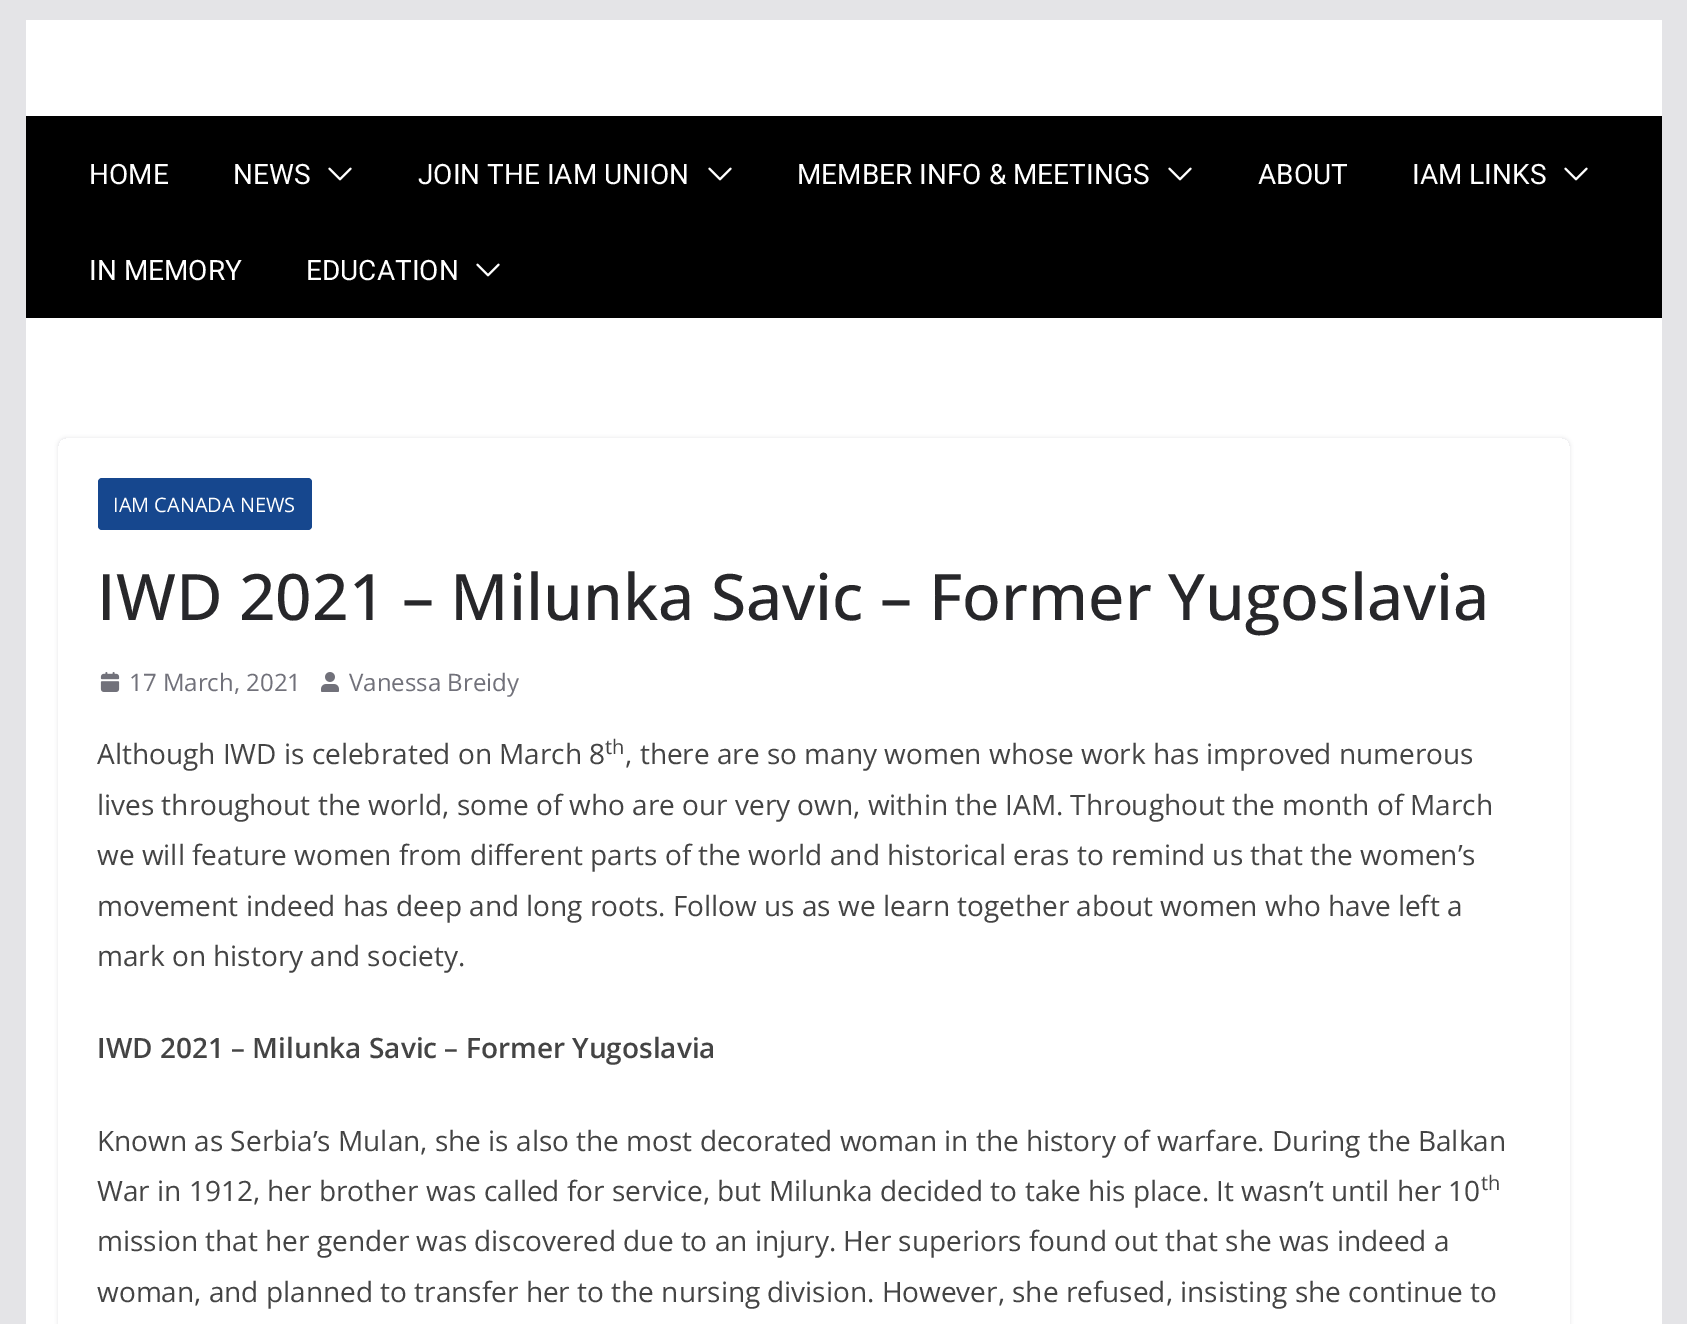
%!PS-Adobe-3.0
%%BoundingBox: 0 0 1687 1324
%%LanguageLevel: 3
%%Pages: 1
%%EndComments
%%BeginProlog
/setink { dup -16 bitshift 255 div exch dup -8 bitshift 255 and 255 div exch 255 and 255 div setrgbcolor } def
/usefont { [ exch dup neg 0 0 3 -1 roll 0 0 ] selectfont } def
/setalpha { dup .setfillconstantalpha .setstrokeconstantalpha } def
/rrect { 5 dict begin { /r /h /w /y /x } { exch def } forall
  x r add y moveto x w add y 2 copy h add r arct x w add y h add x 1 index r arct
  x y h add x y r arct x y 2 copy exch w add exch r arct closepath end } def
/softshadow { 12 dict begin { /a /b /q /h /w /y /x } { exch def } forall gsave /was 0 def
  9 -2 -9 { dup b mul 4 div /e exch def 1 sub .425 mul 2.718 exch exp 1 add a .99 .min exch div /now exch def
    1 1 now sub 1 was sub div sub setalpha /was now def
    w h .min e 2 mul add 0 gt { x e sub y e sub w e 2 mul add h e 2 mul add
      q e add b .6 mul add w h .min 2 div e add .min 0 .max rrect fill } if } for grestore end } def
/drawimage { 5 dict begin { /h /w /y /x /name } { exch def } forall
  gsave x y translate w h scale
  w h 8 [w 0 0 h 0 0] name (r) file false 3 colorimage grestore end } def
%%EndProlog
%%BeginSetup
<< /PageSize [1687 1324] /PageUsesTransparency true >> setpagedevice
%%EndSetup
%%Page: 1 1
0 .pushpdf14devicefilter
0 1324 translate 1 -1 scale
4 setmiterlimit
16#E4E4E7 setink
0 0 1687 1324 rectfill
16#FFFFFF setink
26 20 1636 96 rectfill
16#000000 setink
26 116 1636 202 rectfill
/Roboto-Regular 28 usefont
16#FFFFFF setink
89 184 moveto (HOME) show
233 184 moveto (NEWS) show
(img1.raw) 328 167 24 14 drawimage
418 184 moveto (JOIN THE IAM UNION) show
(img1.raw) 708 167 24 14 drawimage
797 184 moveto (MEMBER INFO & MEETINGS) show
(img1.raw) 1168 167 24 14 drawimage
1258 184 moveto (ABOUT) show
1412 184 moveto (IAM LINKS) show
(img1.raw) 1564 167 24 14 drawimage
89 280 moveto (IN MEMORY) show
306 280 moveto (EDUCATION) show
(img1.raw) 476 263 24 14 drawimage
26 318 1636 1006 rectfill
gsave
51 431 moveto 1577 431 lineto 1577 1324 lineto 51 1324 lineto closepath 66 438 moveto 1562 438 lineto 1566.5 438 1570 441.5 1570 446 curveto 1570 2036 lineto 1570 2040.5 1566.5 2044 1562 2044 curveto 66 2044 lineto 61.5 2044 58 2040.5 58 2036 curveto 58 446 lineto 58 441.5 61.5 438 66 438 curveto closepath eoclip newpath
16#E4E4E7 setink
58 438 1512 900 8 2 1 softshadow
grestore
16#16478E setink
98 478 214 52 4 rrect fill
/OpenSans-Regular 20 usefont
16#FFFFFF setink
113 512 moveto (IAM CANADA NEWS) show
/OpenSans-Medium 64 usefont
16#27272A setink
97 620 moveto (IWD 2021 – Milunka Savic – Former Yugoslavia) show
(img2.raw) 100 672 20 20 drawimage
/OpenSans-Regular 24 usefont
16#71717A setink
129 691 moveto (17 March, 2021) show
(img3.raw) 321 672 18 20 drawimage
349 691 moveto (Vanessa Breidy) show
/OpenSans-Regular 28 usefont
16#444444 setink
97 764 moveto (Although IWD is celebrated on March 8) show
/OpenSans-Regular 20 usefont
605 754 moveto (th) show
/OpenSans-Regular 28 usefont
[
    [(, there are so many women whose work has improved numerous) 625 764]
    [(lives throughout the world, some of who are our very own, within the IAM. Throughout the month of March) 97 815]
    [(we will feature women from different parts of the world and historical eras to remind us that the women’s) 97 865]
    [(movement indeed has deep and long roots. Follow us as we learn together about women who have left a) 97 916]
    [(mark on history and society.) 97 966]
] { aload pop moveto show } forall
/OpenSans-SemiBold 28 usefont
97 1058 moveto (IWD 2021 – Milunka Savic – Former Yugoslavia) show
/OpenSans-Regular 28 usefont
97 1151 moveto (Known as Serbia’s Mulan, she is also the most decorated woman in the history of warfare. During the Balkan) show
97 1201 moveto (War in 1912, her brother was called for service, but Milunka decided to take his place. It wasn’t until her 10) show
/OpenSans-Regular 20 usefont
1481 1190 moveto (th) show
/OpenSans-Regular 28 usefont
97 1251 moveto (mission that her gender was discovered due to an injury. Her superiors found out that she was indeed a) show
97 1302 moveto (woman, and planned to transfer her to the nursing division. However, she refused, insisting she continue to) show
.poppdf14devicefilter showpage
%%EOF
